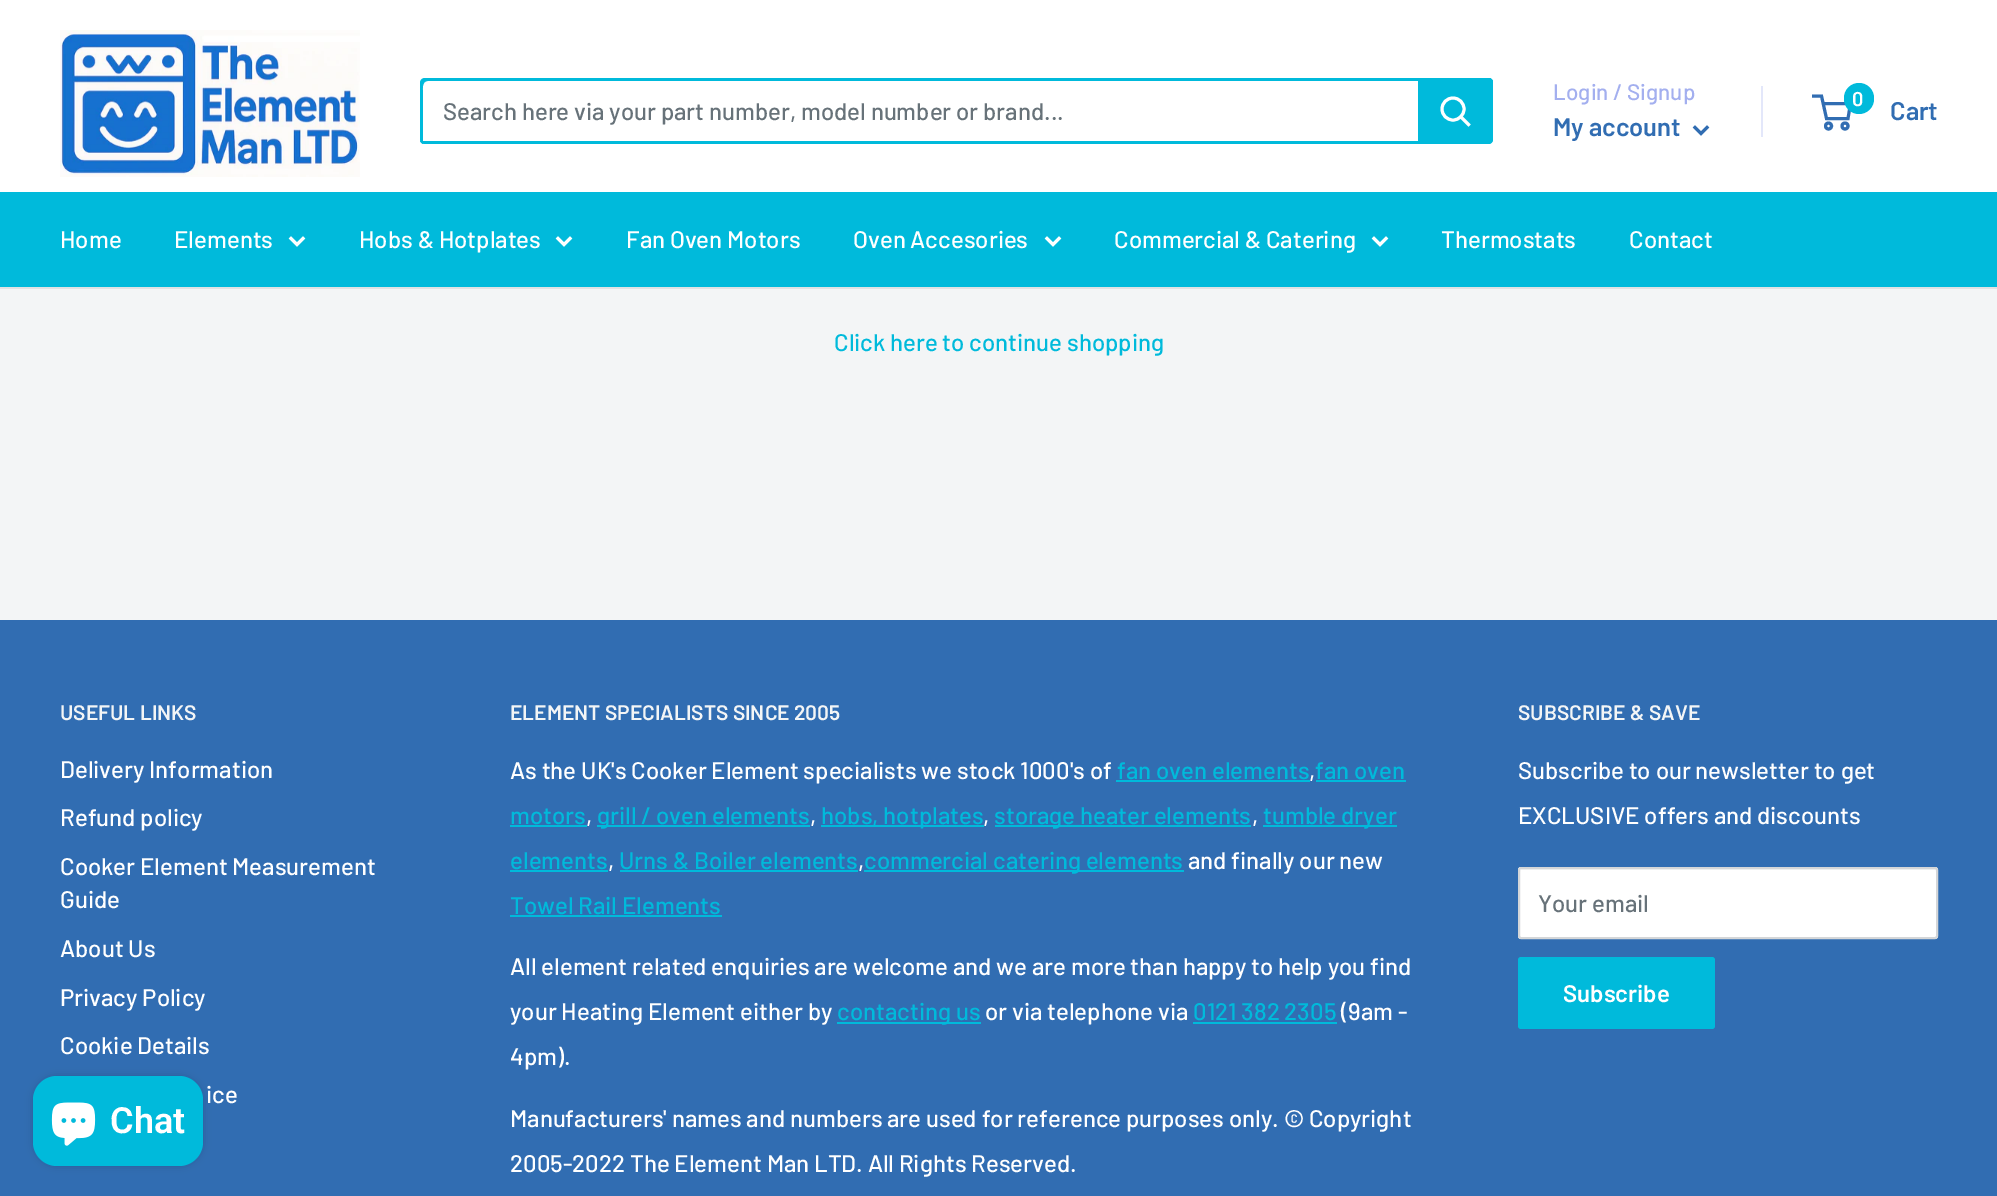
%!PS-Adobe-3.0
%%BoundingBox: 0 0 1997 1196
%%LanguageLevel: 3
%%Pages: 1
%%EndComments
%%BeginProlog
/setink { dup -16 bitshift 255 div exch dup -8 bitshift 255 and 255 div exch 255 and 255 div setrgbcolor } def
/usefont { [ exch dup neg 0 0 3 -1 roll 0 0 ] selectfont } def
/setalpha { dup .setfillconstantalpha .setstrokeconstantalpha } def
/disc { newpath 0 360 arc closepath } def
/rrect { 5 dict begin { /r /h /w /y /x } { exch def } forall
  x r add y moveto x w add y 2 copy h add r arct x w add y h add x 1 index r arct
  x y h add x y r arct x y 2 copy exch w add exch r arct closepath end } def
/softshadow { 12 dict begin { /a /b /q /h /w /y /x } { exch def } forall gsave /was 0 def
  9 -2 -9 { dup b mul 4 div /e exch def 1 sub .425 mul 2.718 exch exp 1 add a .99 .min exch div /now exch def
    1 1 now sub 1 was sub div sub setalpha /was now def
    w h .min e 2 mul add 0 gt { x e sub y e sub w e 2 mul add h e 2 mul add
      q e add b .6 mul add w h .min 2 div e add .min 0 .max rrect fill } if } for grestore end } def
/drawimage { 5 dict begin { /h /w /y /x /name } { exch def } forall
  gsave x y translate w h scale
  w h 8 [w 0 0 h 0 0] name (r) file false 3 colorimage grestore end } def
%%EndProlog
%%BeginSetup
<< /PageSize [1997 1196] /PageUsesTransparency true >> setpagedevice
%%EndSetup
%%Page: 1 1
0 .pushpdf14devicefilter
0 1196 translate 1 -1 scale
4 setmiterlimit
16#F3F5F6 setink
0 0 1997 1196 rectfill
16#FFFFFF setink
0 0 1997 192 rectfill
(img1.raw) 60 30 300 147 drawimage
16#00BADB setink
420 141 moveto 421 143 423 144 425 144 curveto 1488 144 lineto 1491 144 1493 142 1493 139 curveto 1493 83 lineto 1493 81 1492 79 1490 78 curveto 1490 127 lineto 1490 130 1492 141 1485 141 curveto closepath fill
428 81 moveto 1491 81 lineto 1493 81 lineto 1492 79 1490 78 1488 78 curveto 425 78 lineto 422 78 420 80 420 83 curveto 420 139 lineto 420 141 421 143 423 144 curveto 423 95 lineto 423 91 421 81 428 81 curveto closepath fill
/Barlow-Medium 24 usefont
16#677279 setink
443 120 moveto (Search here via your part number, model number or brand...) show
16#00BADB setink
1418 78 moveto 1488 78 lineto 1491 78 1493 80 1493 83 curveto 1493 139 lineto 1493 142 1491 144 1488 144 curveto 1418 144 lineto closepath fill
16#FFFFFF setink
3 setlinewidth
2 setlinecap
1468.5 124.5 moveto 1461 117 lineto stroke
0 setlinecap
1453 109 11 disc stroke
/Barlow-Medium 22.5 usefont
16#A3AFEF setink
1553 100 moveto (Login / Signup) show
16#E3E7FA setink
1761 86 2 51 rectfill
/Barlow-SemiBold 25.5 usefont
16#316DB2 setink
1553 136 moveto (My account) show
2 setlinecap
1707 127.5 moveto 1701 133.5 lineto 1695 127.5 lineto stroke
0 setlinecap
1828.5 126 3 disc stroke
1845 126 3 disc stroke
1823 103.5 moveto 1850.5 103.5 lineto 1848 118.5 lineto 1826.5 118.5 lineto 1821.5 96 lineto 1812 96 lineto stroke
16#00BADB setink
1844 83 30 31 15 rrect fill
/Barlow-SemiBold 20 usefont
16#FFFFFF setink
1852 106 moveto (0) show
/Barlow-SemiBold 25.5 usefont
16#316DB2 setink
1890 120 moveto (Cart) show
16#00BADB setink
0 192 1997 95 rectfill
16#E1E3E4 setink
0 287 1997 2 rectfill
/Barlow-Medium 24 usefont
16#FFFFFF setink
60 248 moveto (Home) show
174 248 moveto (Elements) show
2 setlinecap
303 238.5 moveto 297 244.5 lineto 291 238.5 lineto stroke
359 248 moveto (Hobs & Hotplates) show
570 238.5 moveto 564 244.5 lineto 558 238.5 lineto stroke
626 248 moveto (Fan Oven Motors) show
853 248 moveto (Oven Accesories) show
1059 238.5 moveto 1053 244.5 lineto 1047 238.5 lineto stroke
1114 248 moveto (Commercial & Catering) show
1386 238.5 moveto 1380 244.5 lineto 1374 238.5 lineto stroke
1441 248 moveto (Thermostats) show
1629 248 moveto (Contact) show
16#00BADB setink
834 351 moveto (Click here to continue shopping) show
16#316DB2 setink
0 620 1997 576 rectfill
/Barlow-SemiBold 21 usefont
16#F3F5F6 setink
60 720 moveto (USEFUL LINKS) show
/Barlow-Medium 24 usefont
16#FFFFFF setink
[
    [(Delivery Information) 60 778]
    [(Refund policy) 60 826]
    [(Cooker Element Measurement) 60 875]
    [(Guide) 60 908]
    [(About Us) 60 957]
    [(Privacy Policy) 60 1006]
    [(Cookie Details) 60 1054]
    [(ice) 206 1103]
] { aload pop moveto show } forall
/Barlow-SemiBold 21 usefont
16#F3F5F6 setink
510 720 moveto (ELEMENT SPECIALISTS SINCE 2005) show
/Barlow-Medium 24 usefont
16#FFFFFF setink
510 779 moveto (As the UK's Cooker Element specialists we stock 1000's of) show
16#00BADB setink
1117 779 moveto (fan oven elements) show
1116 780 194 2 rectfill
16#FFFFFF setink
1309 779 moveto (,) show
16#00BADB setink
1315 779 moveto (fan oven) show
1316 780 90 2 rectfill
510 824 moveto (motors) show
510 825 77 2 rectfill
16#FFFFFF setink
586 824 moveto (,) show
16#00BADB setink
597 825 213 2 rectfill
597 824 moveto (grill / oven elements) show
16#FFFFFF setink
810 824 moveto (,) show
16#00BADB setink
821 825 163 2 rectfill
821 824 moveto (hobs, hotplates) show
16#FFFFFF setink
983 824 moveto (,) show
16#00BADB setink
995 825 256 2 rectfill
994 824 moveto (storage heater elements) show
16#FFFFFF setink
1252 824 moveto (,) show
16#00BADB setink
1263 825 134 2 rectfill
1263 824 moveto (tumble dryer) show
510 869 moveto (elements) show
510 870 98 2 rectfill
16#FFFFFF setink
608 869 moveto (,) show
16#00BADB setink
619 869 moveto (Urns & Boiler elements) show
620 870 238 2 rectfill
16#FFFFFF setink
858 869 moveto (,) show
16#00BADB setink
864 870 320 2 rectfill
864 869 moveto (commercial catering elements) show
16#FFFFFF setink
1188 869 moveto (and finally our new) show
16#00BADB setink
510 914 moveto (Towel Rail Elements) show
510 915 212 2 rectfill
16#FFFFFF setink
510 975 moveto (All element related enquiries are welcome and we are more than happy to help you find) show
510 1020 moveto (your Heating Element either by) show
16#00BADB setink
837 1022 144 2 rectfill
837 1020 moveto (contacting us) show
16#FFFFFF setink
985 1020 moveto (or via telephone via) show
16#00BADB setink
1193 1020 moveto (0121 382 2305) show
1193 1022 144 2 rectfill
16#FFFFFF setink
[
    [(\(9am -) 1341 1020]
    [(4pm\).) 510 1065]
    [(Manufacturers' names and numbers are used for reference purposes only. © Copyright) 510 1127]
    [(2005-2022 The Element Man LTD. All Rights Reserved.) 510 1172]
] { aload pop moveto show } forall
/Barlow-SemiBold 21 usefont
16#F3F5F6 setink
1518 720 moveto (SUBSCRIBE & SAVE) show
/Barlow-Medium 24 usefont
16#FFFFFF setink
1518 779 moveto (Subscribe to our newsletter to get) show
1518 824 moveto (EXCLUSIVE offers and discounts) show
1518 867 420 72 3 rrect fill
16#F8F8F8 setink
1521 870 moveto 1935 870 lineto 1936 870 1936 871 1936 872 curveto 1936 938 lineto 1937 937 lineto 1937 870 lineto 1937 870 1936 869 1936 869 curveto 1521 869 lineto 1520 872 lineto 1520 871 1520 870 1521 870 curveto closepath fill
16#D4D6D8 setink
2 setlinewidth
0 setlinecap
1519 868 418 70 2 rrect stroke
16#677279 setink
1538 912 moveto (Your email) show
16#00BADB setink
1518 957 197 72 3 rrect fill
/Barlow-SemiBold 24 usefont
16#FFFFFF setink
1563 1002 moveto (Subscribe) show
16#000000 setink
33 1076 170 90 24 4 0.15 softshadow
16#00BADB setink
33 1076 170 90 24 rrect fill
(img2.raw) 51 1102 45 44 drawimage
/Roboto-SemiBold 36 usefont
16#FFFFFF setink
110 1133 moveto (Chat) show
.poppdf14devicefilter showpage
%%EOF
